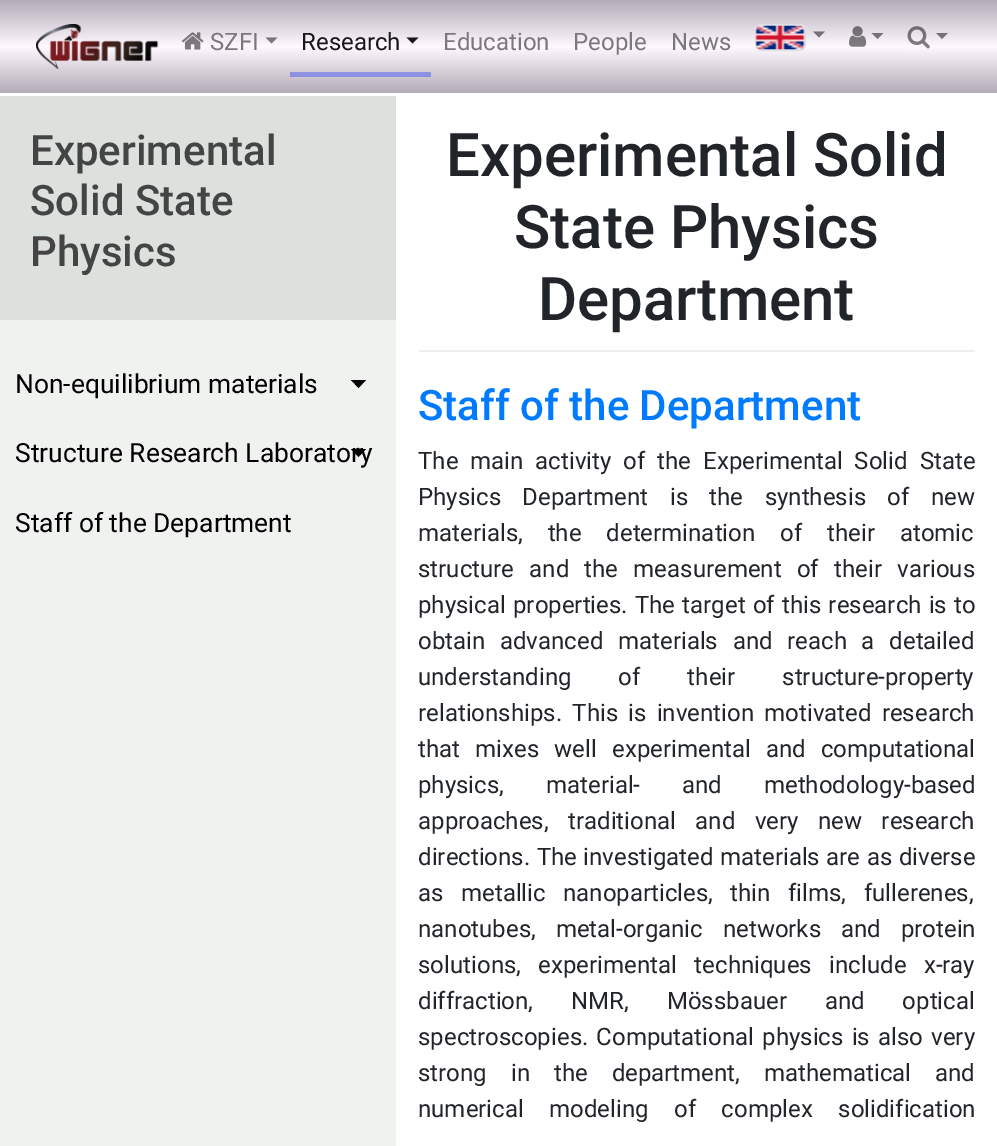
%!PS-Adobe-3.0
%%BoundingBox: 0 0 997 1146
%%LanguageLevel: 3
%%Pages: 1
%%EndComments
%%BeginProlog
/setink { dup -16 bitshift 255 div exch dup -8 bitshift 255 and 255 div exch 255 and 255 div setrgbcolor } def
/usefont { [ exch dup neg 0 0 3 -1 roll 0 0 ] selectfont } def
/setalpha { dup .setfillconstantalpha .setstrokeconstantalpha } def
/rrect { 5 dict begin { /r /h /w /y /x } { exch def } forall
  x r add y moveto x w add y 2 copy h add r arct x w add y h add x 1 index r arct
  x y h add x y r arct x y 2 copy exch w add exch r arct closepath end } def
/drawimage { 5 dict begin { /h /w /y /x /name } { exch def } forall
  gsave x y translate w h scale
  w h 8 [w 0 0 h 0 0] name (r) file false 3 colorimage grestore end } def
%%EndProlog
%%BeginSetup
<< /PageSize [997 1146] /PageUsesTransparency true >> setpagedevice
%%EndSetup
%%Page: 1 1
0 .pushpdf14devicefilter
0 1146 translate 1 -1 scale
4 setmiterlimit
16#FFFFFF setink
0 0 997 1146 rectfill
gsave 0 0 moveto 997 0 lineto 997 93 lineto 0 93 lineto closepath clip newpath
<< /ShadingType 2 /ColorSpace /DeviceRGB /Coords [499 0 499 93] /Extend [true true] /Function << /FunctionType 3 /Domain [0 1] /Functions [<< /FunctionType 2 /Domain [0 1] /C0 [0.702 0.671 0.714] /C1 [1 0.973 1] /N 1 >> << /FunctionType 2 /Domain [0 1] /C0 [1 0.973 1] /C1 [0.702 0.671 0.714] /N 1 >>] /Bounds [0.5] /Encode [0 1 0 1] >> >> shfill grestore
gsave 290 72 moveto 431 72 lineto 431 77 lineto 290 77 lineto closepath clip newpath
<< /ShadingType 2 /ColorSpace /DeviceRGB /Coords [499 0 499 93] /Extend [true true] /Function << /FunctionType 3 /Domain [0 1] /Functions [<< /FunctionType 2 /Domain [0 1] /C0 [0.471 0.49 0.808] /C1 [0.671 0.694 1] /N 1 >> << /FunctionType 2 /Domain [0 1] /C0 [0.671 0.694 1] /C1 [0.471 0.49 0.808] /N 1 >>] /Bounds [0.5] /Encode [0 1 0 1] >> >> shfill grestore
(img1.raw) 36 24 123 45 drawimage
(img2.raw) 182 32 22 18 drawimage
/Roboto-Regular 24 usefont
16#7B787C setink
210 50 moveto (SZFI) show
0.5 setalpha
16#000000 setink
265.5 37.5 moveto 277.5 37.5 lineto 271.5 43.5 lineto closepath fill
1 setalpha
16#191819 setink
301 50 moveto (Research) show
0.9 setalpha
16#000000 setink
406.5 37.5 moveto 418.5 37.5 lineto 412.5 43.5 lineto closepath fill
1 setalpha
16#7B787C setink
[
    [(Education) 443 50]
    [(People) 573 50]
    [(News) 671 50]
] { aload pop moveto show } forall
16#FFFFFF setink
756 25 49 25 5 rrect gsave fill grestore
16#DEE2E6 setink
2 setlinewidth
stroke
(img3.raw) 755 25 50 25 drawimage
0.5 setalpha
16#000000 setink
813 31.5 moveto 825 31.5 lineto 819 37.5 lineto closepath fill
1 setalpha
(img4.raw) 849 26 18 21 drawimage
0.5 setalpha
871.5 33 moveto 883.5 33 lineto 877.5 39 lineto closepath fill
1 setalpha
(img5.raw) 907 26 23 23 drawimage
0.5 setalpha
936 33 moveto 948 33 lineto 942 39 lineto closepath fill
1 setalpha
16#F0F2F0 setink
0 320 396 826 rectfill
16#DDE1DD setink
0 96 396 224 rectfill
/Roboto-Medium 42 usefont
16#444444 setink
[
    [(Experimental) 30 165]
    [(Solid State) 30 215]
    [(Physics) 30 266]
] { aload pop moveto show } forall
/Roboto-Regular 26.4 usefont
16#000000 setink
15 393 moveto (Non-equilibrium materials) show
351 380 moveto 366 380 lineto 358.5 388 lineto closepath fill
15 462 moveto (Structure Research Laboratory) show
351 449 moveto 366 449 lineto 358.5 457 lineto closepath fill
15 532 moveto (Staff of the Department) show
16#EEEEEE setink
419 350 556 2 rectfill
/Roboto-Medium 60 usefont
16#212529 setink
[
    [(Experimental Solid) 446 176]
    [(State Physics) 514 248]
    [(Department) 538 320]
] { aload pop moveto show } forall
/Roboto-Medium 42 usefont
16#007BFF setink
418 420 moveto (Staff of the Department) show
/Roboto-Regular 24 usefont
16#212529 setink
418 469 moveto 6 0 32 (The main activity of the Experimental Solid State) widthshow
418 505 moveto 15.5 0 32 (Physics Department is the synthesis of new) widthshow
418 541 moveto 19 0 32 (materials, the determination of their atomic) widthshow
418 577 moveto 9.25 0 32 (structure and the measurement of their various) widthshow
418 613 moveto 1.25 0 32 (physical properties. The target of this research is to) widthshow
418 649 moveto 8.75 0 32 (obtain advanced materials and reach a detailed) widthshow
418 685 moveto 41 0 32 (understanding of their structure-property) widthshow
418 721 moveto 4.25 0 32 (relationships. This is invention motivated research) widthshow
418 757 moveto 9.25 0 32 (that mixes well experimental and computational) widthshow
418 793 moveto 36 0 32 (physics, material- and methodology-based) widthshow
418 829 moveto 13.5 0 32 (approaches, traditional and very new research) widthshow
418 865 moveto 0.5 0 32 (directions. The investigated materials are as diverse) widthshow
418 901 moveto 11.5 0 32 (as metallic nanoparticles, thin films, fullerenes,) widthshow
418 937 moveto 14 0 32 (nanotubes, metal-organic networks and protein) widthshow
418 973 moveto 11.5 0 32 (solutions, experimental techniques include x-ray) widthshow
418 1009 moveto 32 0 32 (diffraction, NMR, Mössbauer and optical) widthshow
418 1045 moveto 2.25 0 32 (spectroscopies. Computational physics is also very) widthshow
418 1081 moveto 18 0 32 (strong in the department, mathematical and) widthshow
418 1117 moveto 19.5 0 32 (numerical modeling of complex solidification) widthshow
.poppdf14devicefilter showpage
%%EOF
